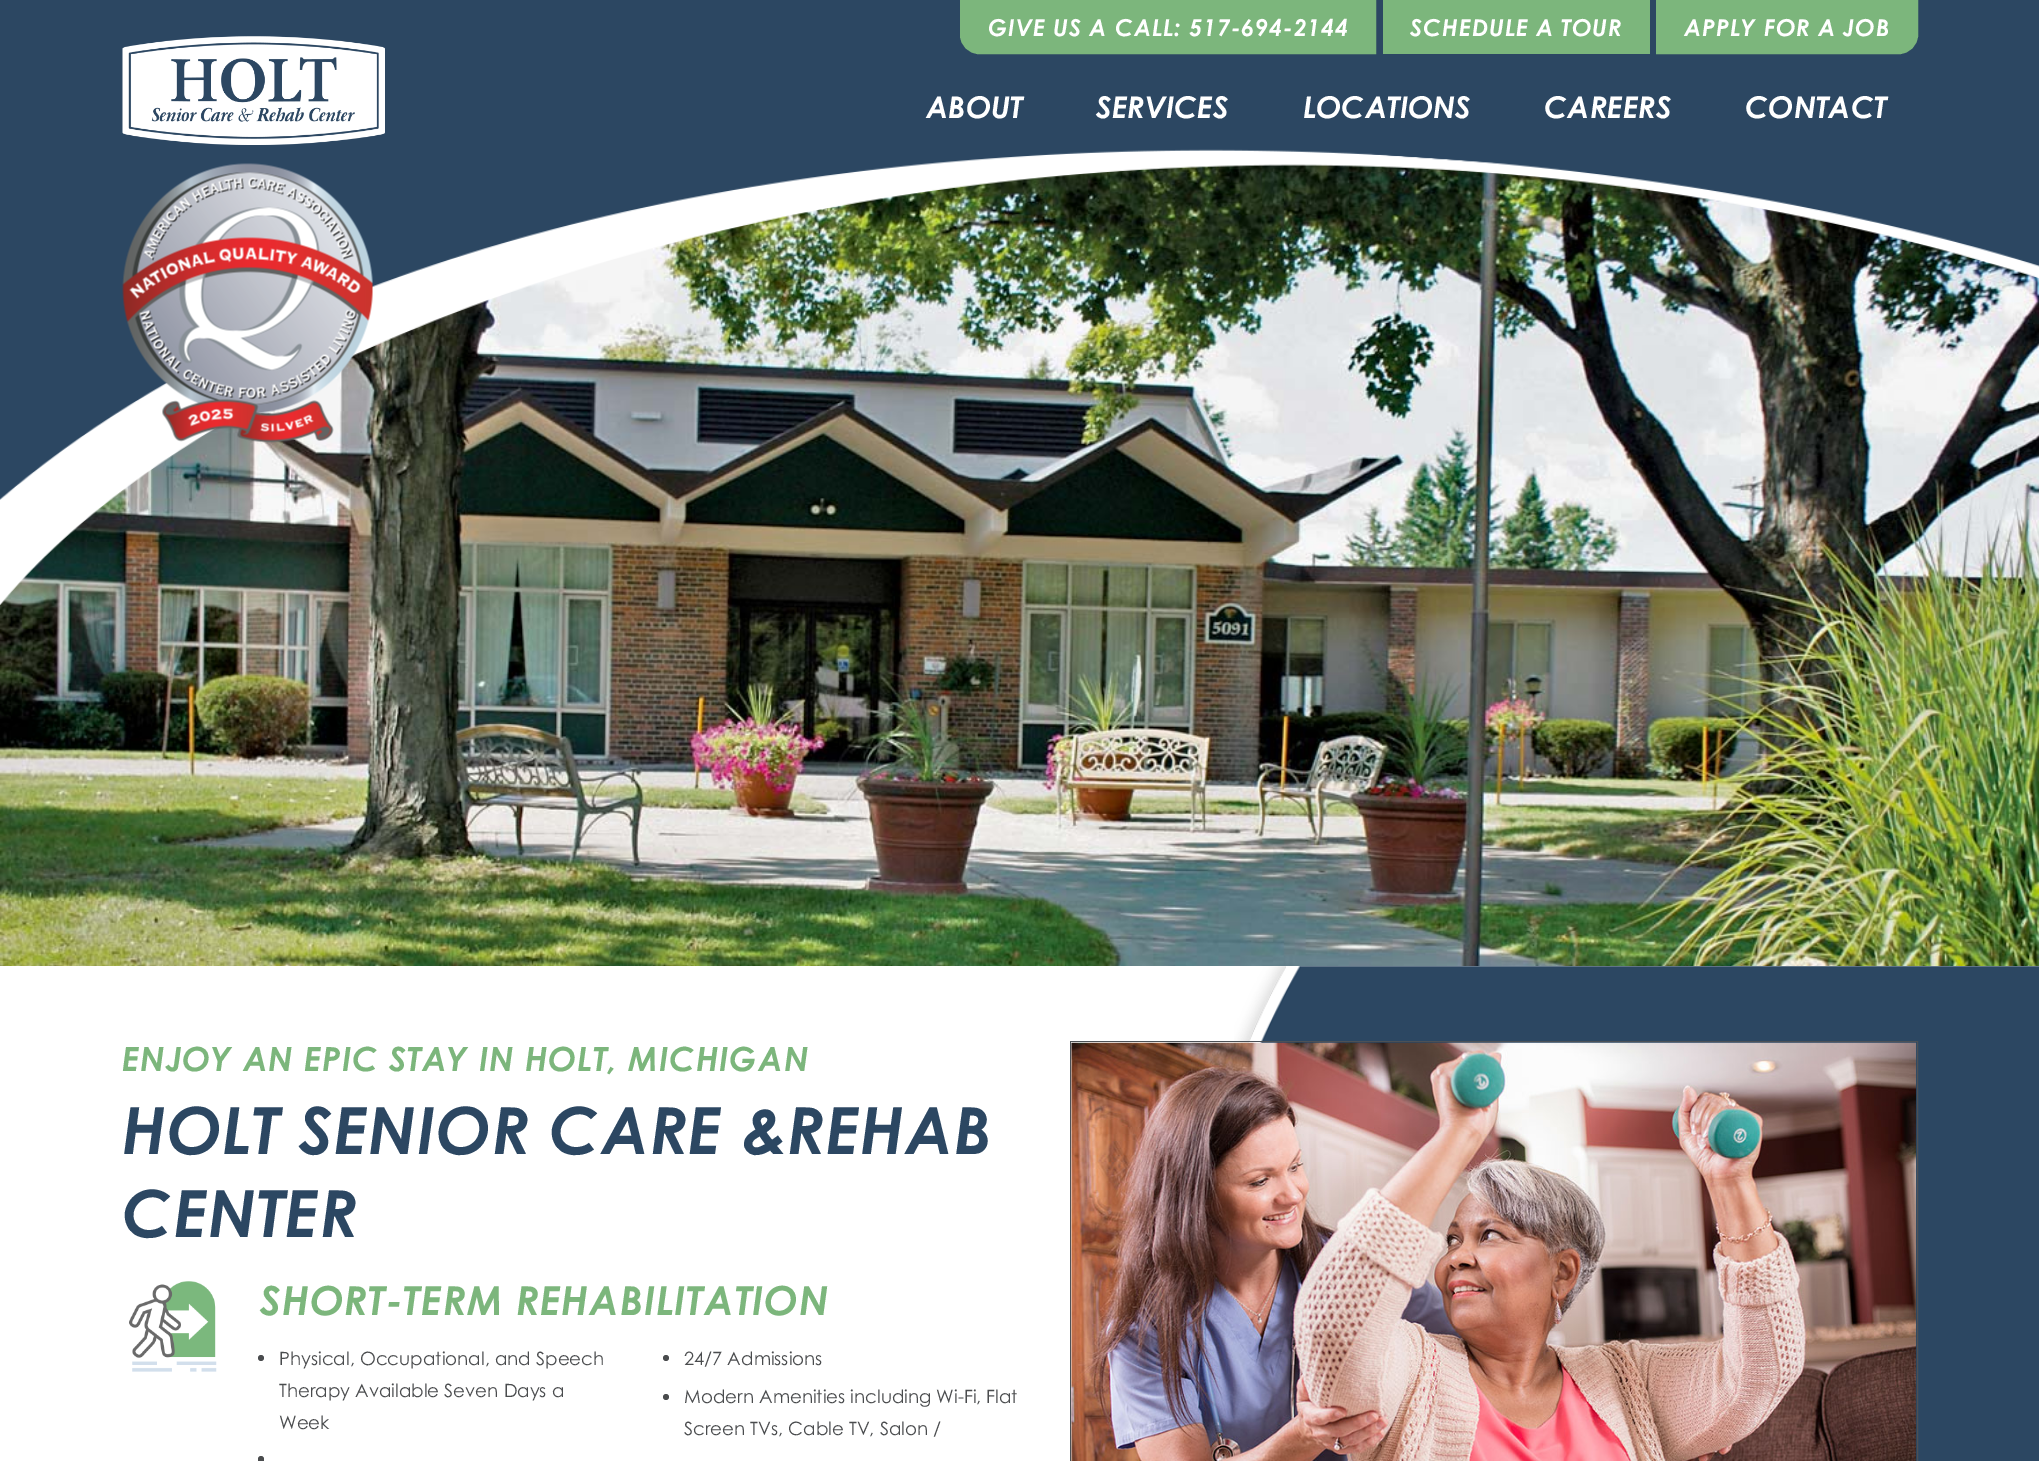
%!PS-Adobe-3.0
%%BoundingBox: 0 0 2039 1461
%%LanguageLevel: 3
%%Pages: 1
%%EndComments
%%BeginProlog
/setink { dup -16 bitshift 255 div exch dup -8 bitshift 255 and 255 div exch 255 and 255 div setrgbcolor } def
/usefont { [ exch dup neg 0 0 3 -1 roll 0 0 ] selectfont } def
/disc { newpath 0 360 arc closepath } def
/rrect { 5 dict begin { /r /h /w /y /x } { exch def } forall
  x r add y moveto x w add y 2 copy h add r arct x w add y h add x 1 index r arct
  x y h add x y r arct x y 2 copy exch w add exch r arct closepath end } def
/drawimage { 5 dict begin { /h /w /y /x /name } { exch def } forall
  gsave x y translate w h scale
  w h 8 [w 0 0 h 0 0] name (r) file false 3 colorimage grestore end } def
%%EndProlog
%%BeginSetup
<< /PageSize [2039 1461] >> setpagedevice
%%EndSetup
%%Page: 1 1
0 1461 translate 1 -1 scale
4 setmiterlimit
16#2C4762 setink
0 0 2039 1461 rectfill
16#7CB67C setink
961.5 1.5 moveto 1374.5 1.5 lineto 1374.5 52.5 lineto 979 52.5 lineto 969.5 52.5 961.5 44.5 961.5 35 curveto closepath gsave fill grestore
3 setlinewidth
stroke
/CenturyGothic-BoldItalic 23.3 usefont
16#FFFFFF setink
988 36 moveto 0.85 0 (GIVE US A CALL: 517-694-2144) ashow
16#7CB67C setink
1383 0 267 54 rectfill
16#FFFFFF setink
1410 36 moveto 0.85 0 (SCHEDULE A TOUR) ashow
16#7CB67C setink
1657.5 1.5 moveto 1916.5 1.5 lineto 1916.5 35 lineto 1916.5 44.5 1908.5 52.5 1899 52.5 curveto 1657.5 52.5 lineto closepath gsave fill grestore
stroke
16#FFFFFF setink
1684 36 moveto 0.85 0 (APPLY FOR A JOB) ashow
(img1.raw) 122 36 263 109 drawimage
(img4.raw) 0 164 2039 802 drawimage
(img3.raw) 0 149 2039 457 drawimage
(img2.raw) 122 163 251 280 drawimage
/CenturyGothic-BoldItalic 30 usefont
[
    [(ABOUT) 926 118]
    [(SERVICES) 1096 118]
    [(LOCATIONS) 1303 118]
    [(CAREERS) 1544 118]
    [(CONTACT) 1745 118]
] { aload pop moveto show } forall
0 966 2039 495 rectfill
(img5.raw) 1234 966 805 495 drawimage
/CenturyGothic-BoldItalic 33.3 usefont
16#7CB67C setink
122 1071 moveto 0.85 0 (ENJOY AN EPIC STAY IN HOLT, MICHIGAN) ashow
/CenturyGothic-BoldItalic 65 usefont
16#2C4762 setink
122 1154 moveto 0.85 0 (HOLT SENIOR CARE &REHAB) ashow
122 1237 moveto 0.85 0 (CENTER) ashow
(img6.raw) 129 1281 88 91 drawimage
/CenturyGothic-BoldItalic 40 usefont
16#7CB67C setink
260 1315 moveto 0.85 0 (SHORT-TERM REHABILITATION) ashow
16#4A4C4E setink
261 1358 3 disc fill
/CenturyGothic-Regular 18.3 usefont
[
    [(Physical, Occupational, and Speech) 279 1365]
    [(Therapy Available Seven Days a) 279 1397]
    [(Week) 279 1429]
] { aload pop moveto show } forall
258 1456 6 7 3 rrect fill
666 1358 3 disc fill
684 1365 moveto (24/7 Admissions) show
666 1397 3 disc fill
684 1403 moveto (Modern Amenities including Wi-Fi, Flat) show
684 1435 moveto (Screen TVs, Cable TV, Salon /) show
16#4C5156 setink
1 setlinewidth
1070.5 1041.5 847 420 rectstroke
(img7.raw) 1071 1042 846 419 drawimage
showpage
%%EOF
